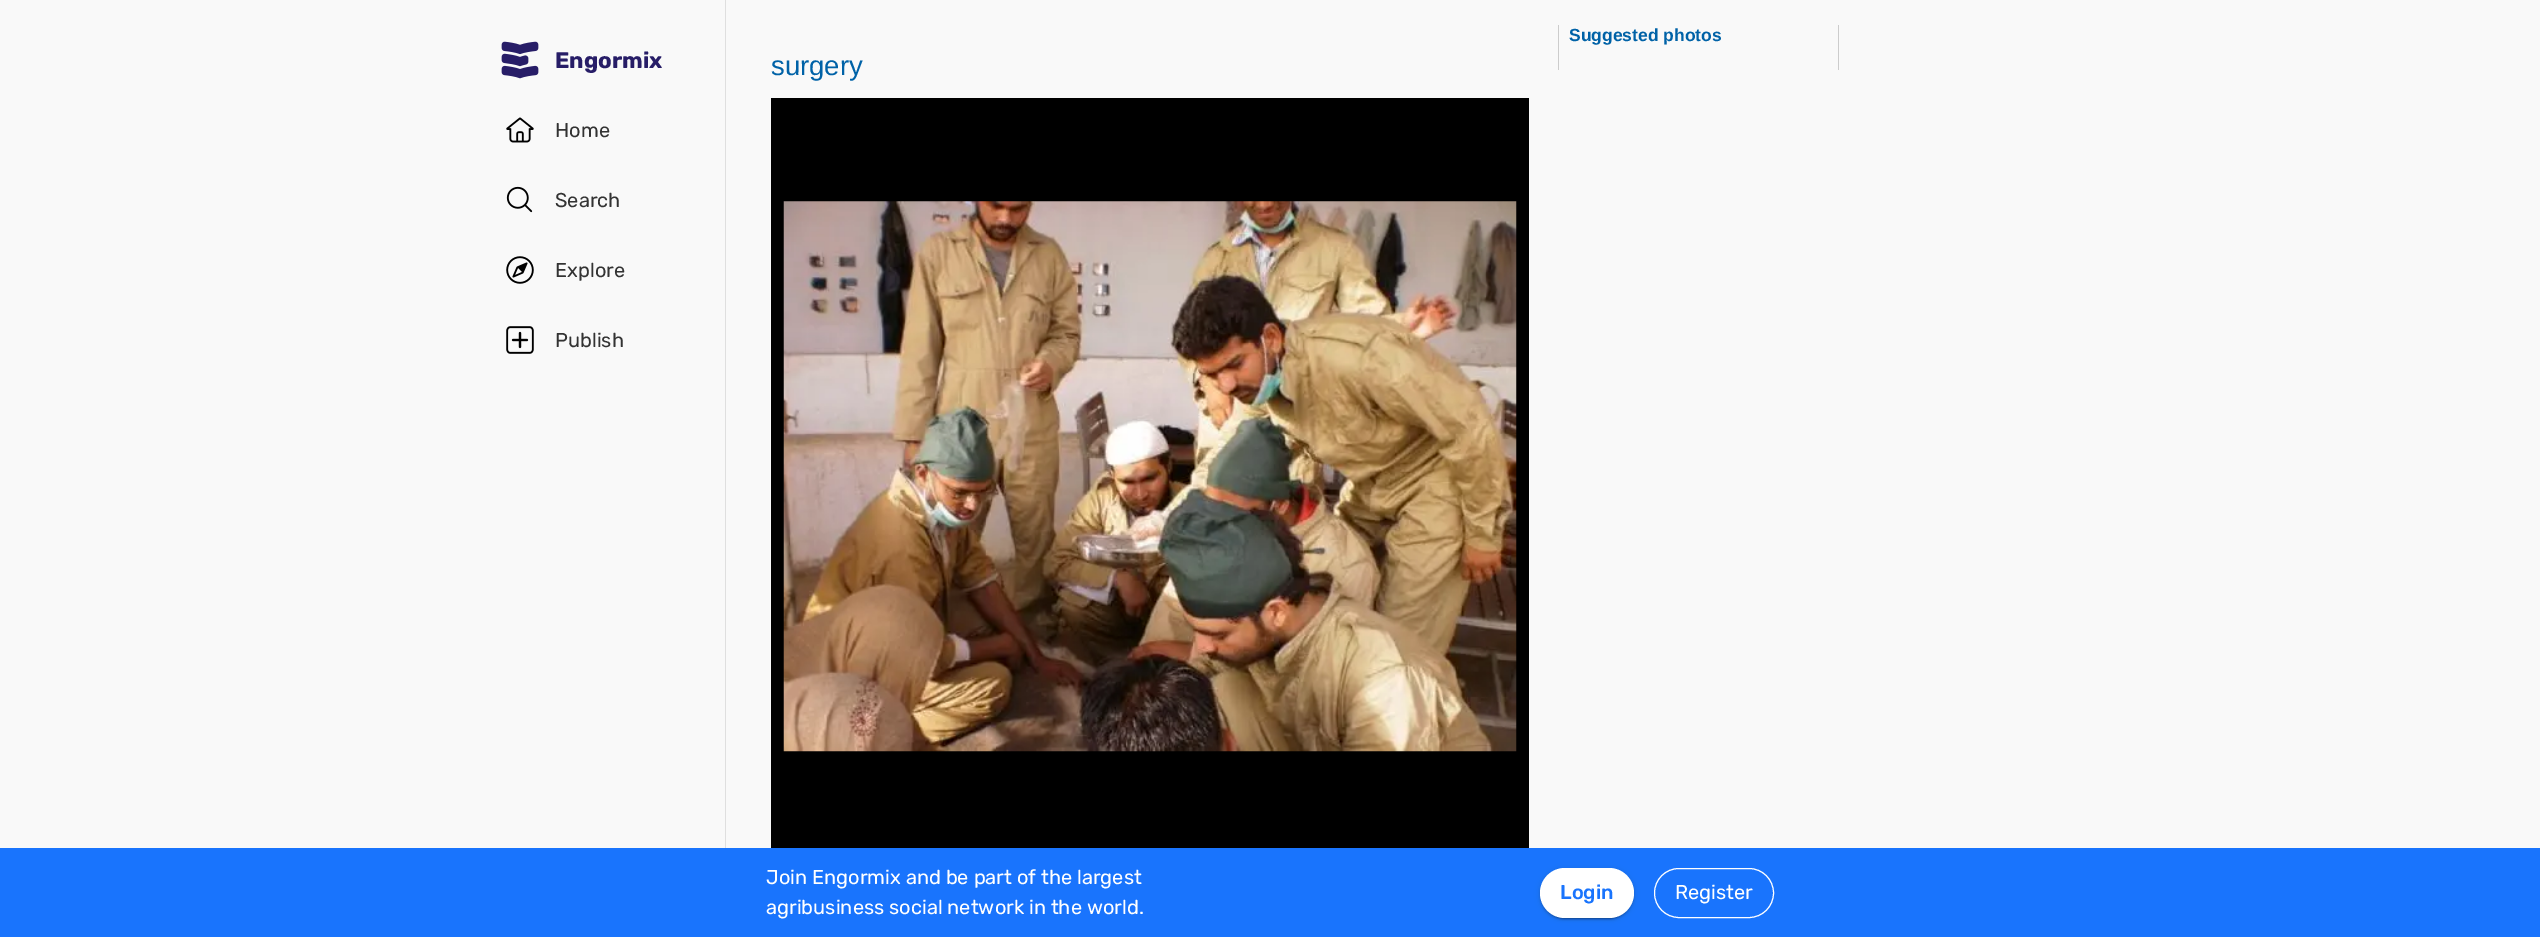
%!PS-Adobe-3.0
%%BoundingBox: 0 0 2540 937
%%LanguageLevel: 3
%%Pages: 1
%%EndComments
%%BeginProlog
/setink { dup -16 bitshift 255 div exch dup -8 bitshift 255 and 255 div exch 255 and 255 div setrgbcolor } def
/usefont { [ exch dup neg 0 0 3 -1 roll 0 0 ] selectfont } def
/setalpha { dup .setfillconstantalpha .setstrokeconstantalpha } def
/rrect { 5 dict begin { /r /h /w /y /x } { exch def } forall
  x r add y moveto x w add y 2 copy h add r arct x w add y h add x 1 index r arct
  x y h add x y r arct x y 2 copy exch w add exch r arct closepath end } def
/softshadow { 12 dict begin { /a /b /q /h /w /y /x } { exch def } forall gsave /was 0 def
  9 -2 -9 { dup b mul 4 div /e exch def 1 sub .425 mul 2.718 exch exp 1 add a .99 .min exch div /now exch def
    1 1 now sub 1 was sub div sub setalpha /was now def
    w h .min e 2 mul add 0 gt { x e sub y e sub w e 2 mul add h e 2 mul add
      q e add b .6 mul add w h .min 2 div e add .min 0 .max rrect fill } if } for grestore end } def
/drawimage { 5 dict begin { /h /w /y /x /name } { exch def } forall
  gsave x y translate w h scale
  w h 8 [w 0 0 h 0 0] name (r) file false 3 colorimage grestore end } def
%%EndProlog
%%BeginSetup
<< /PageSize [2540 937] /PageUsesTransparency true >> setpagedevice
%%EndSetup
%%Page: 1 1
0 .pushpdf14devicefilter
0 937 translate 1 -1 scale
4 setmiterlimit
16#F9F9F9 setink
0 0 2540 937 rectfill
16#CCCCCC setink
1558 25 1 45 rectfill
/LiberationSans-Bold 17.5 usefont
16#0062A7 setink
1569 41 moveto (Suggested photos) show
16#CCCCCC setink
1838 25 1 45 rectfill
/LiberationSans-Regular 27.5 usefont
16#0062A7 setink
771 75 moveto (surgery) show
16#000000 setink
771 98 758 750 rectfill
(img1.raw) 783 201 734 551 drawimage
16#DFDFDF setink
725 0 1 848 rectfill
(img2.raw) 501 41 38 38 drawimage
/Rubik-Bold 22.5 usefont
16#271D67 setink
555 68 moveto (Engormix) show
(img3.raw) 506 117 28 26 drawimage
/Rubik-Regular 20 usefont
16#333333 setink
555 137 moveto (Home) show
(img4.raw) 506 186 27 27 drawimage
555 207 moveto (Search) show
(img5.raw) 506 256 28 28 drawimage
555 277 moveto (Explore) show
(img6.raw) 506 326 28 28 drawimage
555 347 moveto (Publish) show
16#1974FD setink
0 848 2540 89 rectfill
16#FFFFFF setink
766 884 moveto (Join Engormix and be part of the largest) show
766 914 moveto (agribusiness social network in the world.) show
16#000000 setink
1540 869 94 50 25 3 0.12 softshadow
1540 870 94 50 25 1 0.14 softshadow
1543 874 88 45 22.5 0.5 0.2 softshadow
16#FFFFFF setink
1540 868 94 50 25 rrect fill
/Rubik-Medium 20 usefont
16#1974FD setink
1560 899 moveto (Login) show
16#FFFFFF setink
1654.5 868.5 119 49 24.5 rrect stroke
/Rubik-Regular 20 usefont
1675 899 moveto (Register) show
.poppdf14devicefilter showpage
%%EOF
